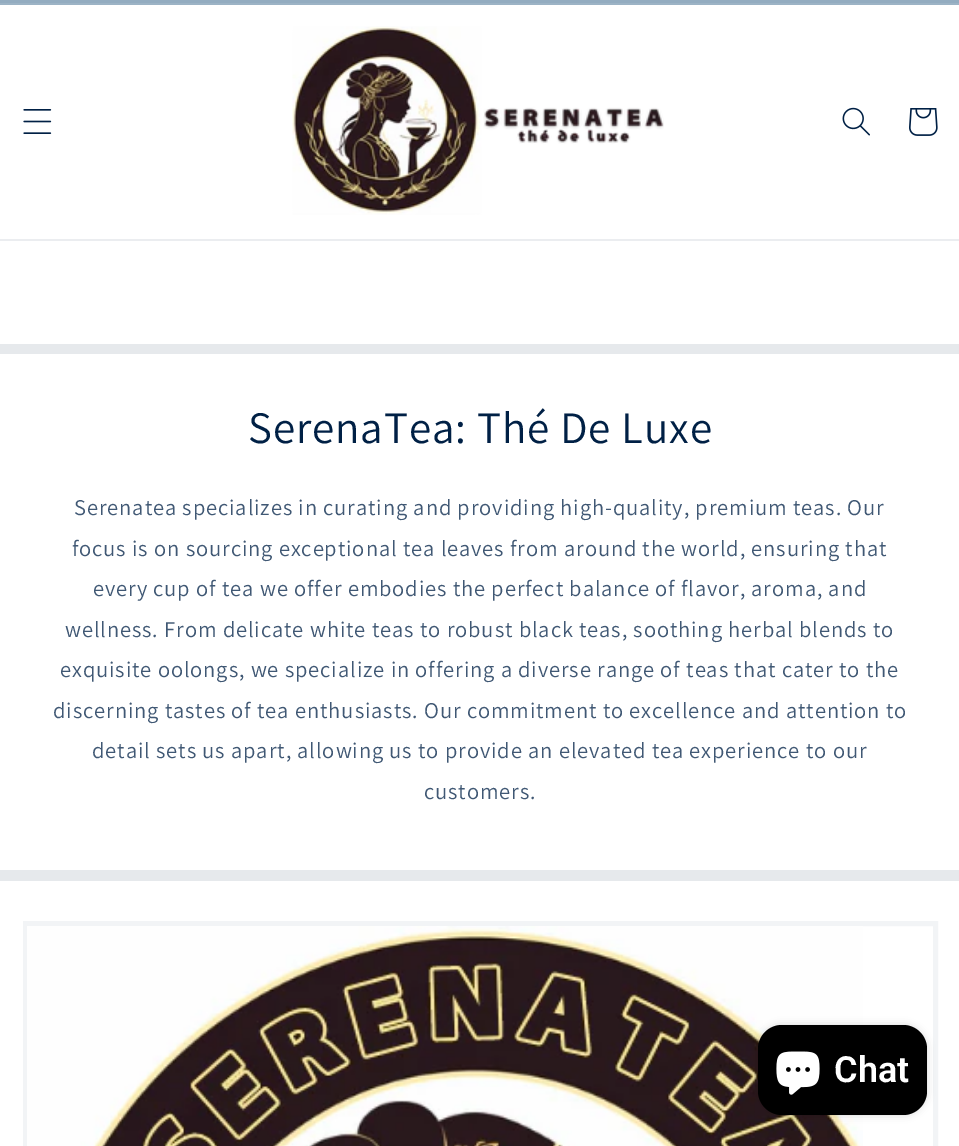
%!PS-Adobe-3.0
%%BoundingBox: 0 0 959 1146
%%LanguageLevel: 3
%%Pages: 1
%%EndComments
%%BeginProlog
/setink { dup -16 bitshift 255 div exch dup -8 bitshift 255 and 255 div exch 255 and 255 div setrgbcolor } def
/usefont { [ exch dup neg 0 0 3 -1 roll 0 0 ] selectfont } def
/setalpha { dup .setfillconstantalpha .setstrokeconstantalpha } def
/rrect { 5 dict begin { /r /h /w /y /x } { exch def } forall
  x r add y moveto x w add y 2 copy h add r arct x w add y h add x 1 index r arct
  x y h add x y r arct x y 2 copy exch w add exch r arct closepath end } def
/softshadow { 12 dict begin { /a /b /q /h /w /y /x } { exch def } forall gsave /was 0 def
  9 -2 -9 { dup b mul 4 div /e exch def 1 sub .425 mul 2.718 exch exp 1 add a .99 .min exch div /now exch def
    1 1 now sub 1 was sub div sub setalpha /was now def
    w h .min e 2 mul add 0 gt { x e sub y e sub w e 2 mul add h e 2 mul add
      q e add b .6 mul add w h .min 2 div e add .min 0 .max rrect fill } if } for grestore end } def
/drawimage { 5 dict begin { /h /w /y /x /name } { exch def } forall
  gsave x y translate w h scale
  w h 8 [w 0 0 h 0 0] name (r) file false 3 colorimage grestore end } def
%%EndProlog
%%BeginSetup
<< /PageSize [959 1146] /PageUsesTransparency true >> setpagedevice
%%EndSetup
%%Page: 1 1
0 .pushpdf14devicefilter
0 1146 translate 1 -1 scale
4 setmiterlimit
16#FFFFFF setink
0 0 959 1146 rectfill
[
    [0 0 959 3 16#93ACC0]
    [0 3 959 2 16#9CB3C5]
    [0 239 959 2 16#EBEDF0]
] { aload pop setink rectfill } forall
(img1.raw) 23 109 29 25 drawimage
(img2.raw) 292 26 372 189 drawimage
(img3.raw) 842 107 28 29 drawimage
(img4.raw) 909 108 29 28 drawimage
16#E6E9EC setink
0 344 959 10 rectfill
0 870 959 11 rectfill
/Assistant-Regular 45 usefont
16#002045 setink
248 443 moveto 0.9 0 (SerenaTea: Thé De Luxe) ashow
/Assistant-Regular 22.5 usefont
16#405874 setink
74 515 moveto 0.9 0 (Serenatea specializes in curating and providing high-quality, premium teas. Our) ashow
72 556 moveto 0.9 0 (focus is on sourcing exceptional tea leaves from around the world, ensuring that) ashow
93 596 moveto 0.9 0 (every cup of tea we offer embodies the perfect balance of flavor, aroma, and) ashow
65 637 moveto 0.9 0 (wellness. From delicate white teas to robust black teas, soothing herbal blends to) ashow
60 677 moveto 0.9 0 (exquisite oolongs, we specialize in offering a diverse range of teas that cater to the) ashow
53 718 moveto 0.9 0 (discerning tastes of tea enthusiasts. Our commitment to excellence and attention to) ashow
92 758 moveto 0.9 0 (detail sets us apart, allowing us to provide an elevated tea experience to our) ashow
424 799 moveto 0.9 0 (customers.) ashow
16#F2F4F6 setink
5 setlinewidth
25.5 923.5 910 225 rectstroke
(img5.raw) 27 926 836 220 drawimage
16#000000 setink
758 1025 169 90 24 4 0.15 softshadow
758 1025 169 90 24 rrect fill
(img6.raw) 776 1051 44 44 drawimage
/Roboto-SemiBold 36 usefont
16#FFFFFF setink
834 1082 moveto (Chat) show
.poppdf14devicefilter showpage
%%EOF
